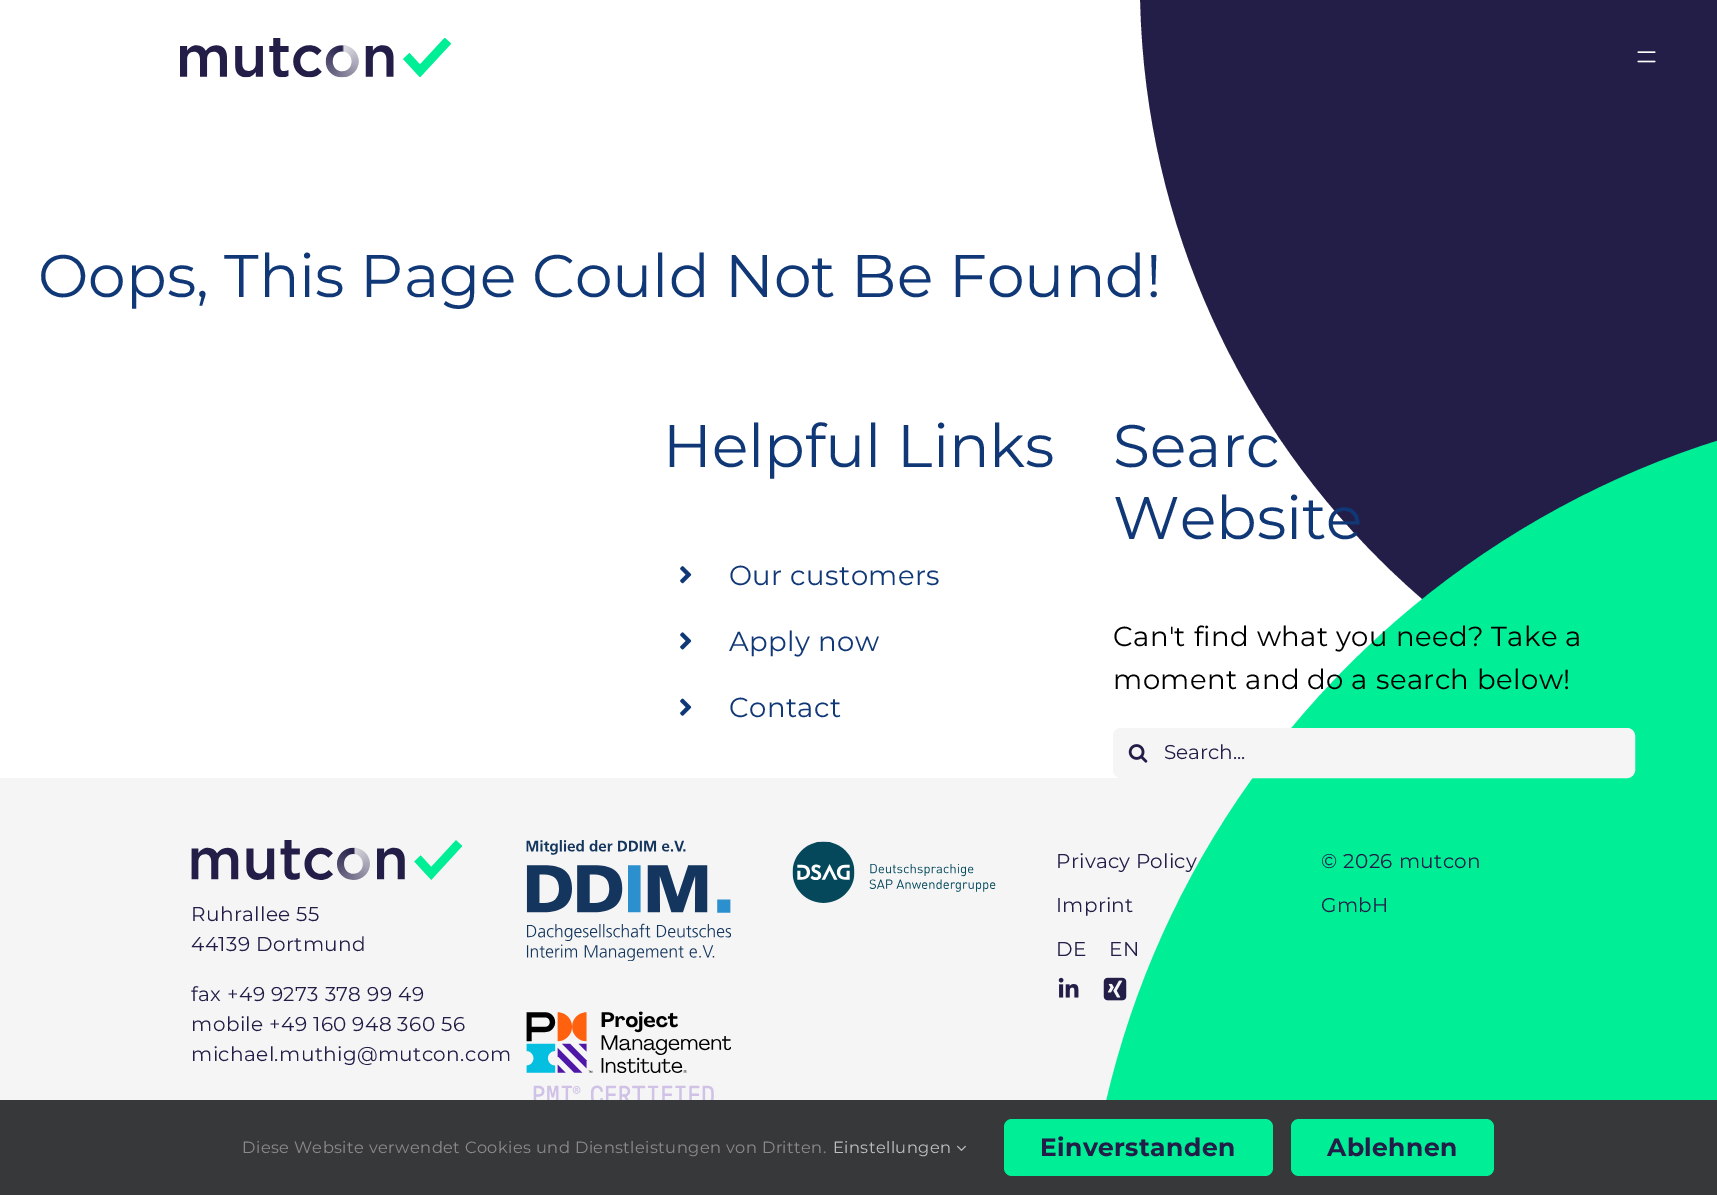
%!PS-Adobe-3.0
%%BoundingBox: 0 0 1717 1195
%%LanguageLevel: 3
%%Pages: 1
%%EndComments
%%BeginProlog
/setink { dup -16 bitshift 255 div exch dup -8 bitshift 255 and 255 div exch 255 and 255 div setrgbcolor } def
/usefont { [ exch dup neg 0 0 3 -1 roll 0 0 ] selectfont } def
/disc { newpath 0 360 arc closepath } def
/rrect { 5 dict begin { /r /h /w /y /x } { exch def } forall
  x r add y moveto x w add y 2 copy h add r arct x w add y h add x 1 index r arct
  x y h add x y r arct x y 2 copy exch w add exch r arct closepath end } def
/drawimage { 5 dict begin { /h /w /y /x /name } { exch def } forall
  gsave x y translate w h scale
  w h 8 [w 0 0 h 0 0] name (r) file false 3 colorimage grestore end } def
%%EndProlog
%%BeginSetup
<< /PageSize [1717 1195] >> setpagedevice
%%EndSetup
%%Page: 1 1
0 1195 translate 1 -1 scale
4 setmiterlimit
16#FFFFFF setink
0 0 1717 1195 rectfill
(img1.raw) 180 38 271 40 drawimage
16#221E48 setink
1955.5 -18 815.5 disc fill
(img2.raw) 1637 51 19 12 drawimage
16#F5F5F5 setink
0 778 1253 322 rectfill
16#00EE96 setink
1992 1308 909.5 disc fill
/Montserrat-Regular 60 usefont
16#103877 setink
38 297 moveto (Oops, This Page Could Not Be Found!) show
663 467 moveto (Helpful Links) show
(img3.raw) 680 566 12 18 drawimage
/Montserrat-Regular 27.5 usefont
729 585 moveto 0.4 0 (Our customers) ashow
(img4.raw) 680 632 12 18 drawimage
729 651 moveto 0.4 0 (Apply now) ashow
(img5.raw) 680 698 12 18 drawimage
729 717 moveto 0.4 0 (Contact) ashow
/Montserrat-Regular 60 usefont
1113 467 moveto (Searc) show
1113 539 moveto (Website) show
/Montserrat-Regular 27.5 usefont
16#000000 setink
1113 646 moveto 0.4 0 (Can't find what you need? Take a) ashow
1113 689 moveto 0.4 0 (moment and do a search below!) ashow
16#F5F5F5 setink
1113.5 728.5 521 49 7.5 rrect gsave fill grestore
stroke
(img6.raw) 1128 744 20 19 drawimage
/Montserrat-Regular 20 usefont
16#221E48 setink
1164 759 moveto (Search...) show
(img7.raw) 526 840 205 121 drawimage
(img8.raw) 526 1011 205 89 drawimage
(img9.raw) 792 841 204 62 drawimage
1056 868 moveto 0.25 0 (Privacy Policy) ashow
1056 912 moveto 0.25 0 (Imprint) ashow
1056 956 moveto 0.25 0 (DE) ashow
1109 956 moveto 0.25 0 (EN) ashow
(img10.raw) 1058 977 21 21 drawimage
(img11.raw) 1103 977 24 24 drawimage
1321 868 moveto 0.4 0 (© 2026 mutcon) ashow
1321 912 moveto 0.4 0 (GmbH) ashow
(img12.raw) 191 840 272 40 drawimage
191 921 moveto 0.4 0 (Ruhrallee 55) ashow
191 951 moveto 0.4 0 (44139 Dortmund) ashow
191 1001 moveto 0.4 0 (fax +49 9273 378 99 49) ashow
191 1031 moveto 0.4 0 (mobile +49 160 948 360 56) ashow
191 1061 moveto 0.4 0 (michael.muthig@mutcon.com) ashow
16#363839 setink
0 1100 1717 95 rectfill
/Montserrat-Regular 16.25 usefont
16#8C8989 setink
242 1153 moveto 0.4 0 (Diese Website verwendet Cookies und Dienstleistungen von Dritten.) ashow
16#BFBFBF setink
833 1153 moveto 0.4 0 (Einstellungen) ashow
(img13.raw) 957 1145 9 6 drawimage
16#00EE96 setink
1004 1119 269 57 8 rrect fill
/Montserrat-Bold 25 usefont
16#221E48 setink
1040 1156 moveto 0.4 0 (Einverstanden) ashow
16#00EE96 setink
1291 1119 203 57 8 rrect fill
16#221E48 setink
1327 1156 moveto 0.4 0 (Ablehnen) ashow
showpage
%%EOF
